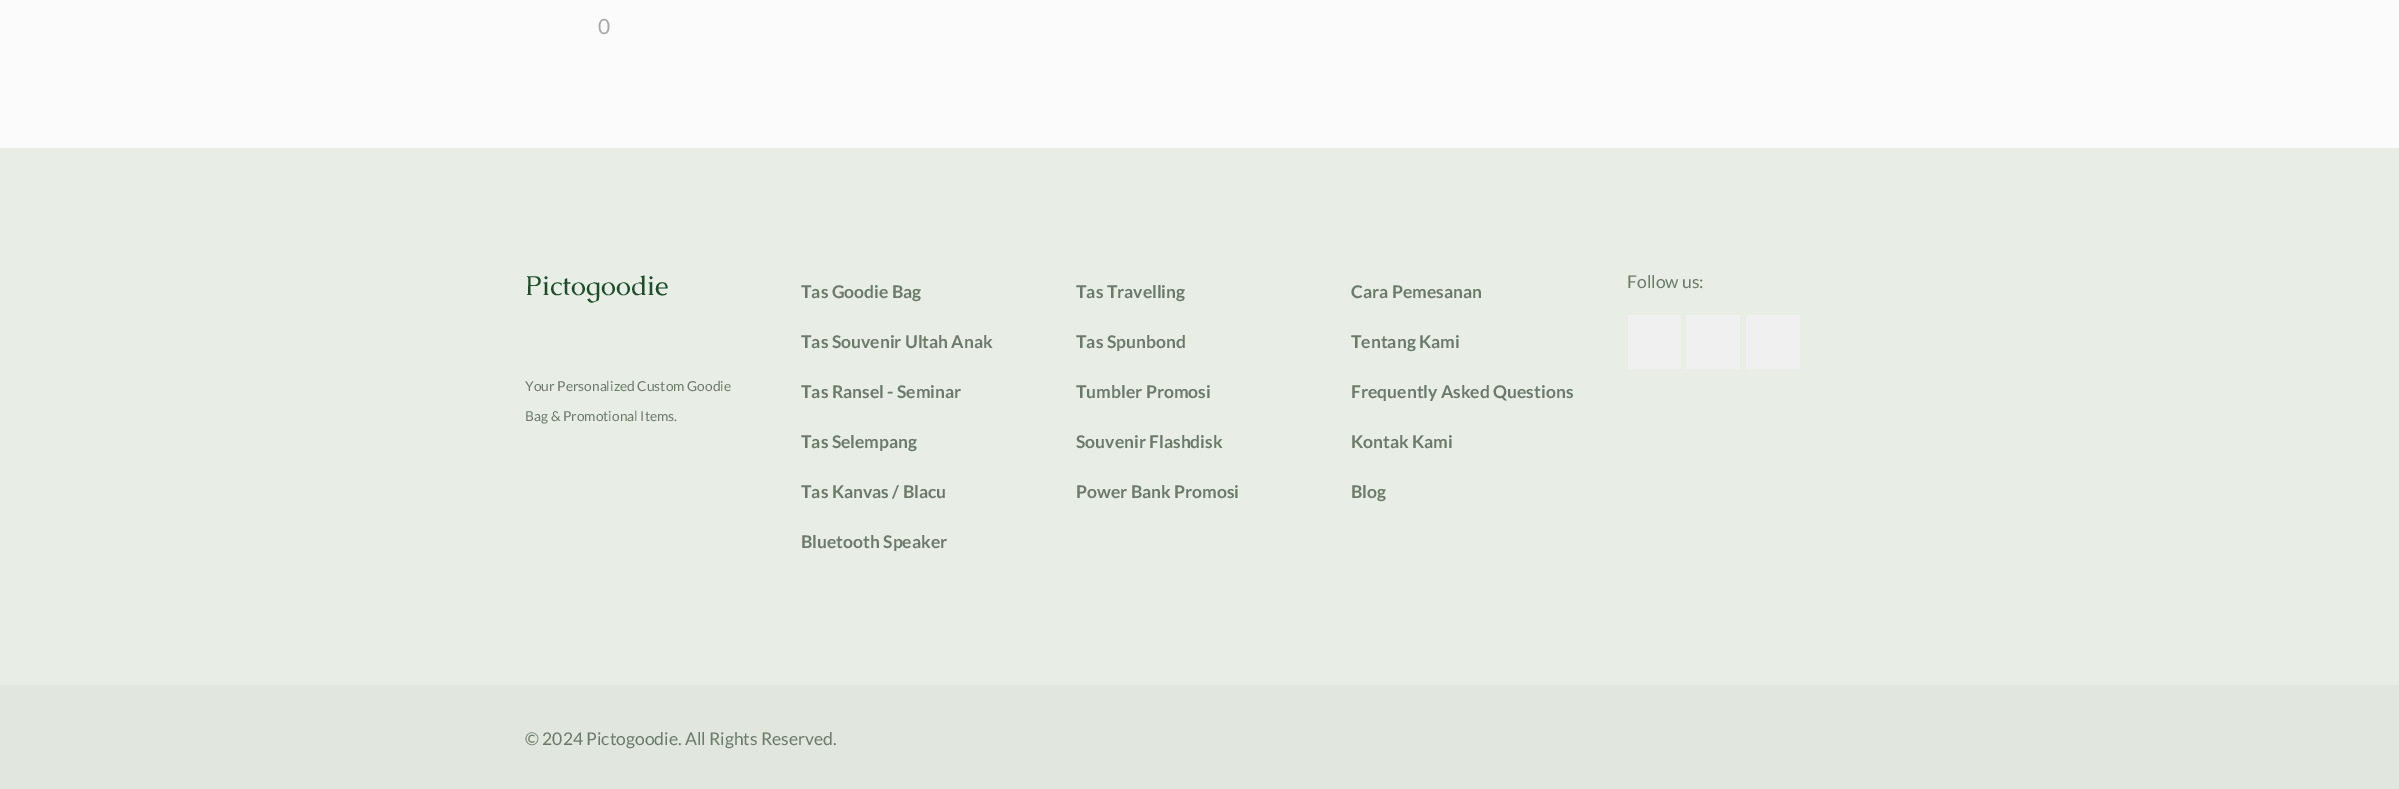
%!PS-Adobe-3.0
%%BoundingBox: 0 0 2399 789
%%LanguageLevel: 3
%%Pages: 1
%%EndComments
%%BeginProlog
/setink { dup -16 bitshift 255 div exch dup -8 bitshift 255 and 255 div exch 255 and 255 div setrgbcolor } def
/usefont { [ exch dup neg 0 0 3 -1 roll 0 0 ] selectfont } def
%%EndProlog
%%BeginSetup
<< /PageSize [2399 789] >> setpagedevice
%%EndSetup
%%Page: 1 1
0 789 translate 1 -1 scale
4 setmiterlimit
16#FAFBFA setink
0 0 2399 789 rectfill
/Lato-Regular 21 usefont
16#A8A8A8 setink
598 34 moveto (0) show
16#E8EDE6 setink
0 148 2399 537 rectfill
/Caudex-Regular 27.5 usefont
16#1C4E2A setink
525 295 moveto (Pictogoodie) show
/Lato-Regular 13.75 usefont
16#6B7A6B setink
525 391 moveto (Your Personalized Custom Goodie) show
525 421 moveto (Bag & Promotional Items.) show
/Lato-Regular 17.5 usefont
1627 288 moveto (Follow us:) show
[
    [1628 315 53 54 16#F0F0F0]
    [1686 315 54 54 16#F0F0F0]
    [1746 315 54 54 16#F0F0F0]
] { aload pop setink rectfill } forall
/Lato-Bold 17.5 usefont
16#6B7A6B setink
[
    [(Tas Goodie Bag) 801 298]
    [(Tas Souvenir Ultah Anak) 801 348]
    [(Tas Ransel - Seminar) 801 398]
    [(Tas Selempang) 801 448]
    [(Tas Kanvas / Blacu) 801 498]
    [(Bluetooth Speaker) 801 548]
    [(Tas Travelling) 1076 298]
    [(Tas Spunbond) 1076 348]
    [(Tumbler Promosi) 1076 398]
    [(Souvenir Flashdisk) 1076 448]
    [(Power Bank Promosi) 1076 498]
    [(Cara Pemesanan) 1351 298]
    [(Tentang Kami) 1351 348]
    [(Frequently Asked Questions) 1351 398]
    [(Kontak Kami) 1351 448]
    [(Blog) 1351 498]
] { aload pop moveto show } forall
16#E1E7DE setink
0 686 2399 103 rectfill
16#E4E9E1 setink
0 685 2399 1 rectfill
/Lato-Regular 17.5 usefont
16#6B7A6B setink
525 745 moveto (© 2024 Pictogoodie. All Rights Reserved.) show
showpage
%%EOF
